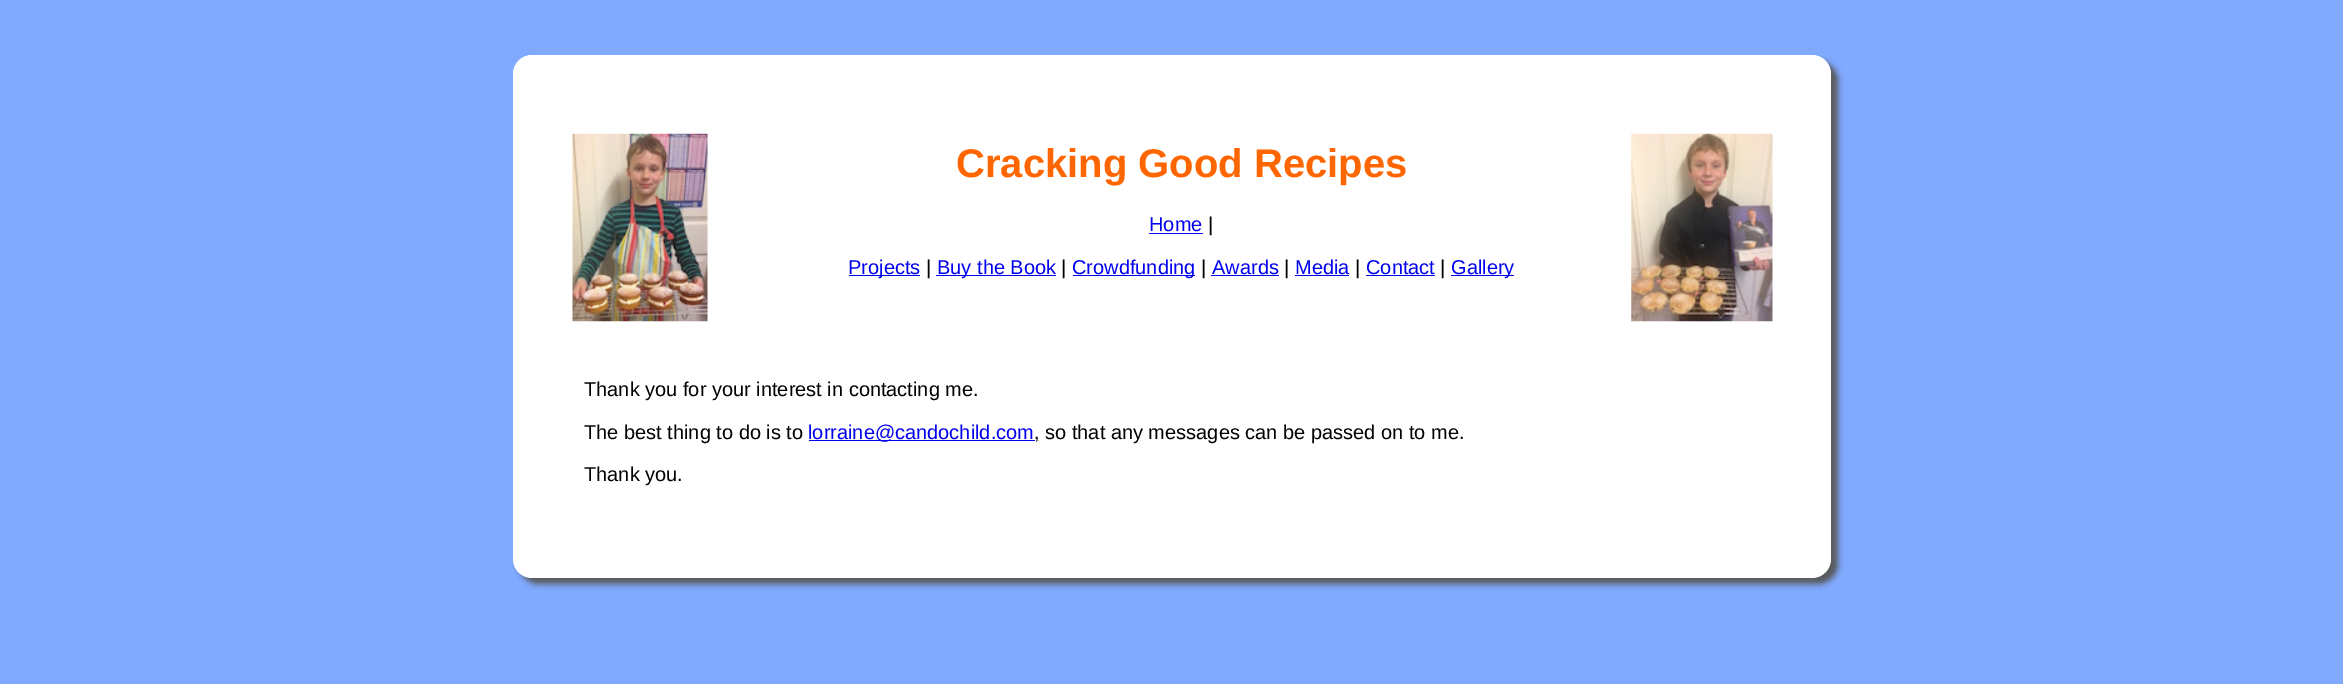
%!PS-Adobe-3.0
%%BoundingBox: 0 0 2343 684
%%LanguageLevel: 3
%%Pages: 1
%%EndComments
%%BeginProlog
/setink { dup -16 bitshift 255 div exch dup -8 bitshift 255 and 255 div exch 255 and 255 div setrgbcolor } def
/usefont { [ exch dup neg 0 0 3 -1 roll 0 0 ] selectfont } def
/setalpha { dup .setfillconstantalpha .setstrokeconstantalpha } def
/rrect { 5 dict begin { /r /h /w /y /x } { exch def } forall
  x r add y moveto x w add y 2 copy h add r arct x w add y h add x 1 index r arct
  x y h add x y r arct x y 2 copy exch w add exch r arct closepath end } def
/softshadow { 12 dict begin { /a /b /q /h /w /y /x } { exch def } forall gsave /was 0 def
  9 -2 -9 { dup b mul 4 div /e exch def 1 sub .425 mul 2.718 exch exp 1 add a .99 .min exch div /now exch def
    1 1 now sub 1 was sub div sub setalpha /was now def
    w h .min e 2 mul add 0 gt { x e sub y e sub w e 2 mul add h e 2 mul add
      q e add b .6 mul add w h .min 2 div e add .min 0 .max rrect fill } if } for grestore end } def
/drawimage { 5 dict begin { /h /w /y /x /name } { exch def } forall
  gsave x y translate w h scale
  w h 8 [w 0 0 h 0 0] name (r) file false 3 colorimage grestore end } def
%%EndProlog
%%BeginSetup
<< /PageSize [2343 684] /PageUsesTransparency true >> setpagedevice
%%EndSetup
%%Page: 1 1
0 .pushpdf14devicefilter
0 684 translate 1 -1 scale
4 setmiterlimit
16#80AAFF setink
0 0 2343 684 rectfill
16#585858 setink
519 61 1319 523 19 3 1 softshadow
16#FFFFFF setink
513 55 1318 523 19 rrect fill
(img1.raw) 572 133 136 189 drawimage
(img2.raw) 1631 133 142 189 drawimage
/LiberationSans-Bold 40 usefont
16#FF6600 setink
956 177 moveto (Cracking Good Recipes) show
/LiberationSans-Regular 20 usefont
16#0000EE setink
1149 231 moveto (Home) show
1149 233 54 1 rectfill
16#000000 setink
1208 231 moveto (|) show
16#0000EE setink
849 275 71 1 rectfill
848 274 moveto (Projects) show
16#000000 setink
926 274 moveto (|) show
16#0000EE setink
936 275 120 1 rectfill
937 274 moveto (Buy the Book) show
16#000000 setink
1061 274 moveto (|) show
16#0000EE setink
1073 275 122 1 rectfill
1072 274 moveto (Crowdfunding) show
16#000000 setink
1201 274 moveto (|) show
16#0000EE setink
1212 274 moveto (Awards) show
1211 275 68 1 rectfill
16#000000 setink
1284 274 moveto (|) show
16#0000EE setink
1295 274 moveto (Media) show
1295 275 54 1 rectfill
16#000000 setink
1355 274 moveto (|) show
16#0000EE setink
1366 274 moveto (Contact) show
1366 275 69 1 rectfill
16#000000 setink
1440 274 moveto (|) show
16#0000EE setink
1451 275 63 1 rectfill
1451 274 moveto (Gallery) show
16#000000 setink
584 396 moveto (Thank you for your interest in contacting me.) show
584 439 moveto (The best thing to do is to) show
16#0000EE setink
809 440 226 1 rectfill
808 439 moveto (lorraine@candochild.com) show
16#000000 setink
1034 439 moveto (, so that any messages can be passed on to me.) show
584 481 moveto (Thank you.) show
.poppdf14devicefilter showpage
%%EOF
